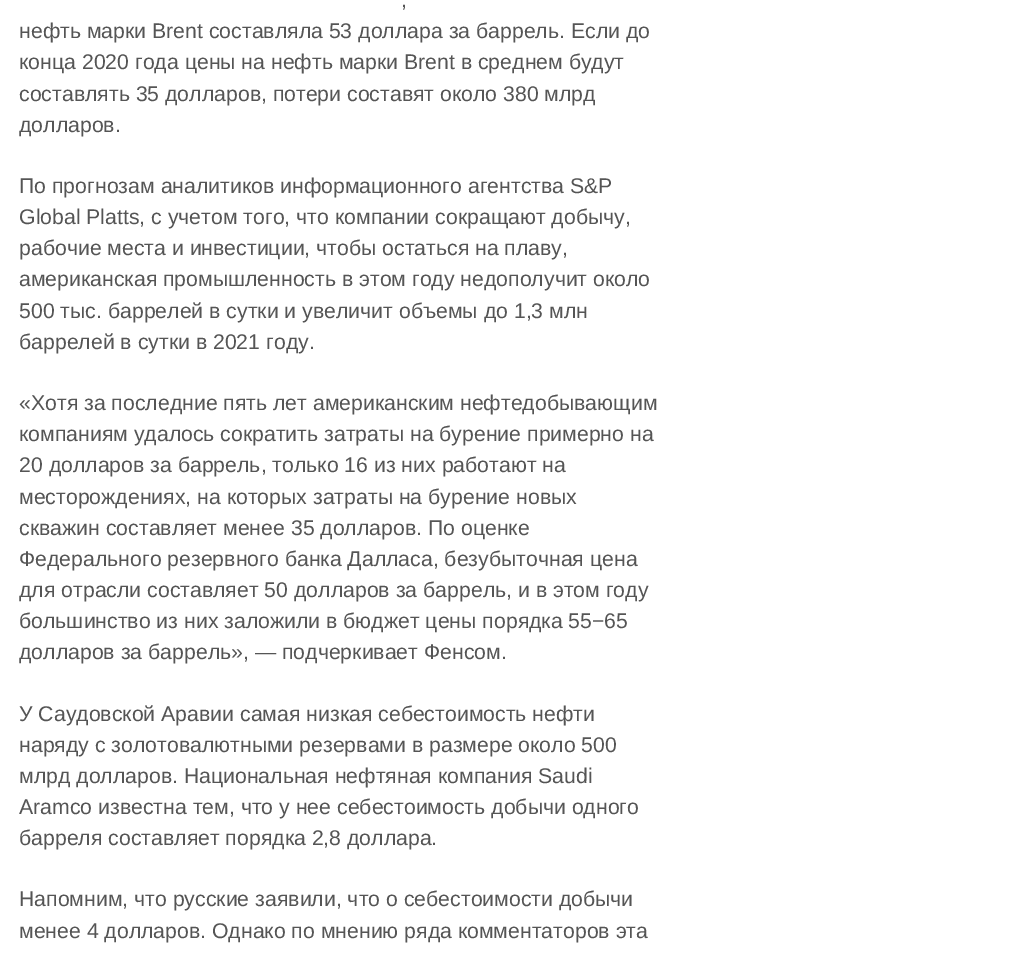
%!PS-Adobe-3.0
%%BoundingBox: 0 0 1013 961
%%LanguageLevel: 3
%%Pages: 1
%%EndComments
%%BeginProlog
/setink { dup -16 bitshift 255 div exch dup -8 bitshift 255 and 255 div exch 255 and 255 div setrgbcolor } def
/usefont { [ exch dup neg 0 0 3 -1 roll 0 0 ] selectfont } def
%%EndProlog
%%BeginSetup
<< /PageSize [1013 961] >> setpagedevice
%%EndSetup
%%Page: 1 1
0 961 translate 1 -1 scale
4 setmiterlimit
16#FFFFFF setink
0 0 1013 961 rectfill
/LiberationSans-Regular 21.25 usefont
16#555555 setink
[
    [(,) 401 7]
    [(нефть марки Brent составляла 53 доллара за баррель. Если до) 19 38]
    [(конца 2020 года цены на нефть марки Brent в среднем будут) 19 69]
    [(составлять 35 долларов, потери составят около 380 млрд) 19 101]
    [(долларов.) 19 132]
    [(По прогнозам аналитиков информационного агентства S&P) 19 193]
    [(Global Platts, с учетом того, что компании сокращают добычу,) 19 224]
    [(рабочие места и инвестиции, чтобы остаться на плаву,) 19 255]
    [(американская промышленность в этом году недополучит около) 19 286]
    [(500 тыс. баррелей в сутки и увеличит объемы до 1,3 млн) 19 318]
    [(баррелей в сутки в 2021 году.) 19 349]
    [(«Хотя за последние пять лет американским нефтедобывающим) 19 410]
    [(компаниям удалось сократить затраты на бурение примерно на) 19 441]
    [(20 долларов за баррель, только 16 из них работают на) 19 472]
    [(месторождениях, на которых затраты на бурение новых) 19 504]
    [(скважин составляет менее 35 долларов. По оценке) 19 535]
    [(Федерального резервного банка Далласа, безубыточная цена) 19 566]
    [(для отрасли составляет 50 долларов за баррель, и в этом году) 19 597]
    [(большинство из них заложили в бюджет цены порядка 55−65) 19 628]
    [(долларов за баррель», — подчеркивает Фенсом.) 19 659]
    [(У Саудовской Аравии самая низкая себестоимость нефти) 19 721]
    [(наряду с золотовалютными резервами в размере около 500) 19 752]
    [(млрд долларов. Национальная нефтяная компания Saudi) 19 783]
    [(Aramco известна тем, что у нее себестоимость добычи одного) 19 814]
    [(барреля составляет порядка 2,8 доллара.) 19 845]
    [(Напомним, что русские заявили, что о себестоимости добычи) 19 906]
    [(менее 4 долларов. Однако по мнению ряда комментаторов эта) 19 938]
] { aload pop moveto show } forall
showpage
%%EOF
